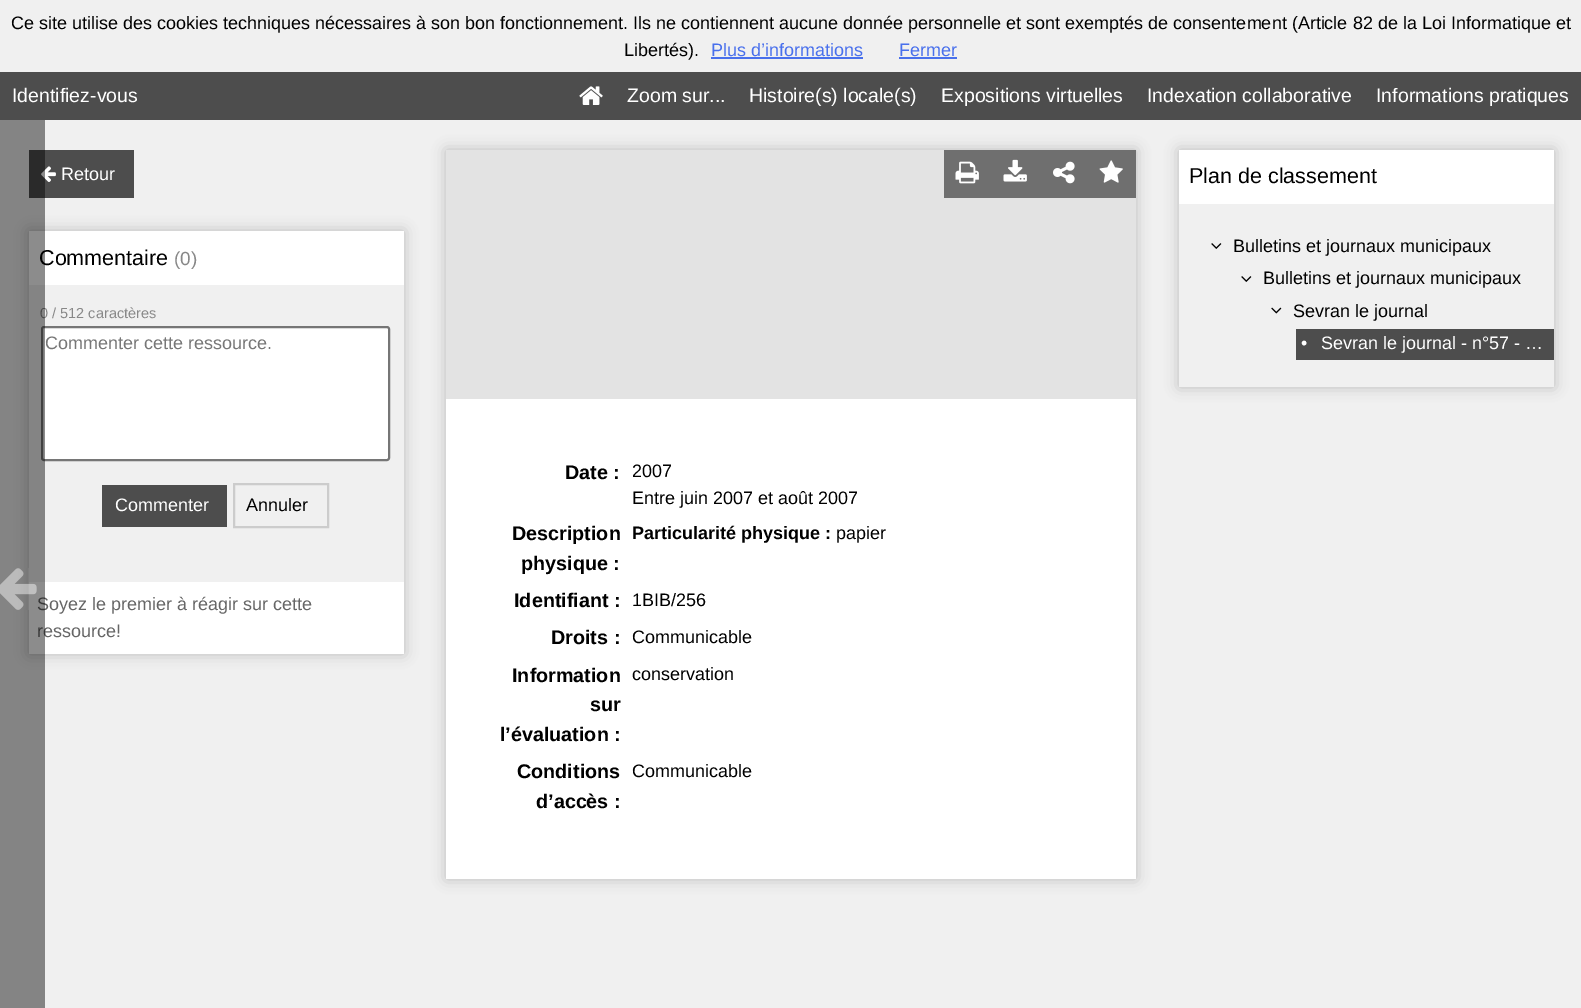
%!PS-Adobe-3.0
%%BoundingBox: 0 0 1581 1008
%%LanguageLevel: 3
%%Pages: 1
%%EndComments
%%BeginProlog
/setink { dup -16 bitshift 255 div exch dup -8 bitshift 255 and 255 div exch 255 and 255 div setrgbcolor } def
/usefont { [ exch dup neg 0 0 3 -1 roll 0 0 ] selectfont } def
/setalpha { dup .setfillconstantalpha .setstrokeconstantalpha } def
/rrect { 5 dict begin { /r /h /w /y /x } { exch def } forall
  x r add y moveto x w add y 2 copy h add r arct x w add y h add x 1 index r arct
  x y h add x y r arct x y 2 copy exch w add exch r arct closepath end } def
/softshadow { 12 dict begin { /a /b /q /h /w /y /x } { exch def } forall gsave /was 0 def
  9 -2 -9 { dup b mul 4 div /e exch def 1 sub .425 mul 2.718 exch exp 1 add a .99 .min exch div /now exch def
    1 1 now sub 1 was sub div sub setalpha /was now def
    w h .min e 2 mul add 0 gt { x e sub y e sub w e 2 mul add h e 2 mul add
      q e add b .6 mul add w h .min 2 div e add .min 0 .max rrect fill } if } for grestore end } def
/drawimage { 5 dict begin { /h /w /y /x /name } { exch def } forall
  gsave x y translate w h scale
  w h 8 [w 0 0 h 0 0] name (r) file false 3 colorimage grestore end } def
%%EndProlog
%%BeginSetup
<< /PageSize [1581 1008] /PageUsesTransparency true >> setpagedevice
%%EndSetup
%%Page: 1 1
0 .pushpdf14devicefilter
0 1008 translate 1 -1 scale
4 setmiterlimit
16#F0F0F0 setink
0 0 1581 1008 rectfill
/LiberationSans-Regular 18 usefont
16#000000 setink
11 29 moveto (Ce site utilise des cookies techniques nécessaires à son bon fonctionnement. Ils ne contiennent aucune donnée personnelle et sont exemptés de consentement \(Article 82 de la Loi Informatique et) show
624 56 moveto (Libertés\).) show
16#4970EC setink
711 56 moveto (Plus d’informations) show
711 57 152 2 rectfill
899 56 moveto (Fermer) show
899 57 58 2 rectfill
16#4D4D4D setink
0 72 1581 48 rectfill
/LiberationSans-Regular 19.5 usefont
16#FFFFFF setink
12 102 moveto (Identifiez-vous) show
(img1.raw) 579 86 24 19 drawimage
[
    [(Zoom sur...) 627 102]
    [(Histoire\(s\) locale\(s\)) 749 102]
    [(Expositions virtuelles) 941 102]
    [(Indexation collaborative) 1147 102]
    [(Informations pratiques) 1376 102]
] { aload pop moveto show } forall
16#4D4D4D setink
29 150 105 48 rectfill
(img3.raw) 41 166 15 16 drawimage
gsave
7 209 moveto 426 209 lineto 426 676 lineto 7 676 lineto closepath 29 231 moveto 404 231 lineto 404 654 lineto 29 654 lineto closepath eoclip newpath
16#BBBBBB setink
29 231 375 423 0 7 1 softshadow
grestore
16#FFFFFF setink
29 231 375 54 rectfill
/LiberationSans-Regular 21.5 usefont
16#000000 setink
39 265 moveto (Commentaire) show
/LiberationSans-Regular 14.5 usefont
16#888888 setink
40 318 moveto (0 / 512 caractères) show
16#FFFFFF setink
42 327 347 133 2 rrect gsave fill grestore
16#767676 setink
2 setlinewidth
stroke
16#FFFFFF setink
29 582 375 72 rectfill
/LiberationSans-Regular 18 usefont
16#666666 setink
37 610 moveto (Soyez le premier à réagir sur cette) show
37 637 moveto (ressource!) show
0.45 setalpha
16#000000 setink
0 120 45 888 rectfill
1 setalpha
(img2.raw) 0 568 37 42 drawimage
16#FFFFFF setink
61 180 moveto (Retour) show
/LiberationSans-Regular 19 usefont
16#888888 setink
174 265 moveto (\(0\)) show
/LiberationSans-Regular 18 usefont
16#777777 setink
45 349 moveto (Commenter cette ressource.) show
16#4D4D4D setink
102 485 125 42 rectfill
16#FFFFFF setink
115 511 moveto (Commenter) show
16#CCCCCC setink
234 484 94 43 rectstroke
16#000000 setink
246 511 moveto (Annuler) show
gsave
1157 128 moveto 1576 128 lineto 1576 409 lineto 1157 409 lineto closepath 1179 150 moveto 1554 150 lineto 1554 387 lineto 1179 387 lineto closepath eoclip newpath
16#BBBBBB setink
1179 150 375 237 0 7 1 softshadow
grestore
16#FFFFFF setink
1179 150 375 54 rectfill
/LiberationSans-Regular 21.5 usefont
16#000000 setink
1189 183 moveto (Plan de classement) show
(img4.raw) 1211 243 11 6 drawimage
/LiberationSans-Regular 18 usefont
1233 252 moveto (Bulletins et journaux municipaux) show
(img4.raw) 1241 276 11 6 drawimage
1263 284 moveto (Bulletins et journaux municipaux) show
(img5.raw) 1271 307 11 7 drawimage
1293 317 moveto (Sevran le journal) show
16#4D4D4D setink
1296 329 258 31 rectfill
16#FFFFFF setink
1301 349 moveto (•) show
1321 349 moveto (Sevran le journal - n°57 - …) show
16#BBBBBB setink
446 150 690 729 0 7 1 softshadow
[
    [446 399 690 480 16#FFFFFF]
    [446 150 690 249 16#E3E3E3]
    [944 150 96 48 16#6F6F6F]
] { aload pop setink rectfill } forall
(img6.raw) 955 161 24 23 drawimage
1040 150 96 48 rectfill
(img7.raw) 1099 160 24 23 drawimage
(img8.raw) 1003 159 24 23 drawimage
(img9.raw) 1053 161 22 23 drawimage
/LiberationSans-Bold 19.75 usefont
16#000000 setink
565 479 moveto (Date :) show
/LiberationSans-Regular 18 usefont
632 477 moveto (2007) show
632 504 moveto (Entre juin 2007 et août 2007) show
/LiberationSans-Bold 19.75 usefont
512 540 moveto (Description) show
521 570 moveto (physique :) show
/LiberationSans-Bold 18 usefont
632 539 moveto (Particularité physique :) show
/LiberationSans-Regular 18 usefont
836 539 moveto (papier) show
/LiberationSans-Bold 19.75 usefont
514 607 moveto (Identifiant :) show
/LiberationSans-Regular 18 usefont
632 606 moveto (1BIB/256) show
/LiberationSans-Bold 19.75 usefont
551 644 moveto (Droits :) show
/LiberationSans-Regular 18 usefont
632 643 moveto (Communicable) show
/LiberationSans-Bold 19.75 usefont
[
    [(Information) 512 682]
    [(sur) 590 711]
    [(l’évaluation :) 500 741]
] { aload pop moveto show } forall
/LiberationSans-Regular 18 usefont
632 680 moveto (conservation) show
/LiberationSans-Bold 19.75 usefont
517 778 moveto (Conditions) show
536 808 moveto (d’accès :) show
/LiberationSans-Regular 18 usefont
632 777 moveto (Communicable) show
.poppdf14devicefilter showpage
%%EOF
